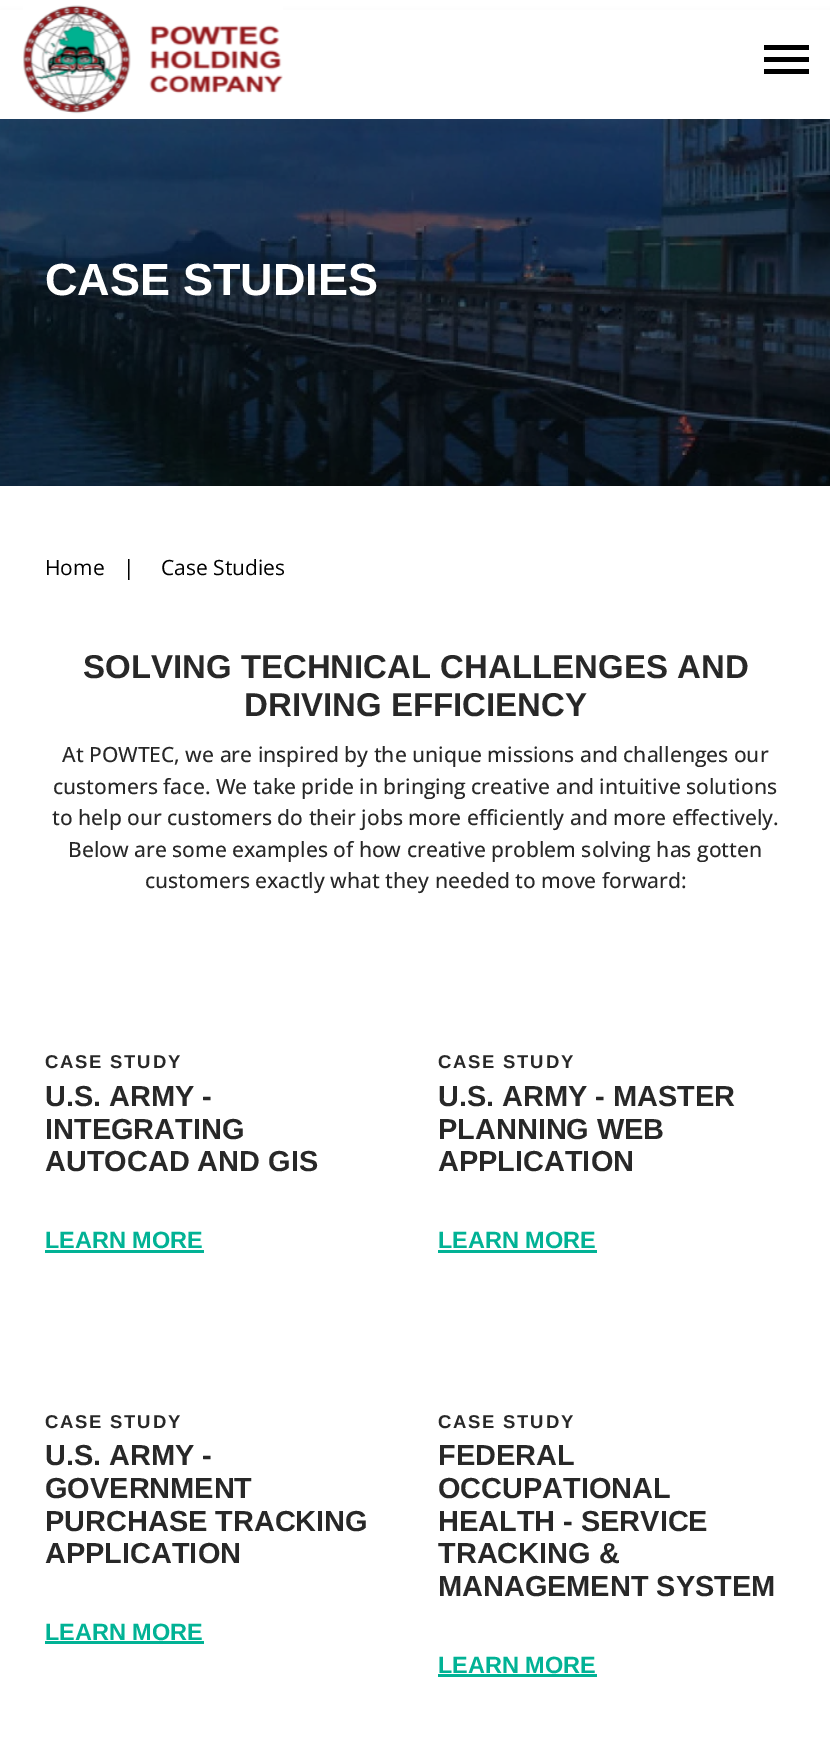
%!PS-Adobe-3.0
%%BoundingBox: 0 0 830 1755
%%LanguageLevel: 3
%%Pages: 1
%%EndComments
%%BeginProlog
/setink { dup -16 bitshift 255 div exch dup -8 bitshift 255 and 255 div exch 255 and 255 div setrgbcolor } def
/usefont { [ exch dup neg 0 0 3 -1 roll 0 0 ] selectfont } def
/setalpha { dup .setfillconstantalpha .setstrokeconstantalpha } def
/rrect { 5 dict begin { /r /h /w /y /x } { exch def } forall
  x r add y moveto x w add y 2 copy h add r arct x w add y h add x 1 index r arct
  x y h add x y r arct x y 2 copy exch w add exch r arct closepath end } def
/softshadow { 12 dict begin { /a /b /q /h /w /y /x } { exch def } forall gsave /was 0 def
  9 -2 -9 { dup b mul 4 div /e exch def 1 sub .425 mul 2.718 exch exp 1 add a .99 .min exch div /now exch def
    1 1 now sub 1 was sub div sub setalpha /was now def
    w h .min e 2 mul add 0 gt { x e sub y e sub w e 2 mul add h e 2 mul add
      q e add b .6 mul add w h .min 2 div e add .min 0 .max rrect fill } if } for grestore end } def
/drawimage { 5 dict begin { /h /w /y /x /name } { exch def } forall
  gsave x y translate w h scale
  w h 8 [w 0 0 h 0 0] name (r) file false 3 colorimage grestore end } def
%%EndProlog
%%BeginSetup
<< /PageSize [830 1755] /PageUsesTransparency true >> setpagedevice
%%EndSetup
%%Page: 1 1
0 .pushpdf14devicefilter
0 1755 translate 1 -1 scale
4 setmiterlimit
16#FFFFFF setink
0 0 830 1755 rectfill
(img2.raw) 0 119 830 367 drawimage
16#000000 setink
0 14 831 118 0 4.5 0.06 softshadow
16#FFFFFF setink
0 10 830 109 rectfill
(img1.raw) 23 5 260 109 drawimage
[
    [764 57 45 5 16#000000]
    [764 45 45 5 16#000000]
    [764 69 45 5 16#000000]
] { aload pop setink rectfill } forall
/LiberationSans-Bold 45 usefont
16#FFFFFF setink
45 295 moveto (CASE STUDIES) show
/OpenSans-Regular 21 usefont
16#000000 setink
[
    [(Home) 45 575]
    [(|) 123 575]
    [(Case Studies) 161 575]
] { aload pop moveto show } forall
/LiberationSans-Bold 33 usefont
16#282828 setink
83 678 moveto (SOLVING TECHNICAL CHALLENGES AND) show
244 716 moveto (DRIVING EFFICIENCY) show
/OpenSans-Medium 21 usefont
[
    [(At POWTEC, we are inspired by the unique missions and challenges our) 62 762]
    [(customers face. We take pride in bringing creative and intuitive solutions) 53 794]
    [(to help our customers do their jobs more efficiently and more effectively.) 52 825]
    [(Below are some examples of how creative problem solving has gotten) 68 857]
    [(customers exactly what they needed to move forward:) 145 888]
] { aload pop moveto show } forall
/LiberationSans-Bold 18.5 usefont
45 1068 moveto 1.75 0 (CASE STUDY) ashow
/LiberationSans-Bold 28.9 usefont
[
    [(U.S. ARMY -) 45 1106]
    [(INTEGRATING) 45 1139]
    [(AUTOCAD AND GIS) 45 1171]
] { aload pop moveto show } forall
16#01B295 setink
45 1250 159 3 rectfill
/LiberationSans-Bold 23.5 usefont
45 1248 moveto (LEARN MORE) show
/LiberationSans-Bold 18.5 usefont
16#282828 setink
438 1068 moveto 1.75 0 (CASE STUDY) ashow
/LiberationSans-Bold 28.9 usefont
[
    [(U.S. ARMY - MASTER) 438 1106]
    [(PLANNING WEB) 438 1139]
    [(APPLICATION) 438 1171]
] { aload pop moveto show } forall
16#01B295 setink
438 1250 159 3 rectfill
/LiberationSans-Bold 23.5 usefont
438 1248 moveto (LEARN MORE) show
/LiberationSans-Bold 18.5 usefont
16#282828 setink
45 1428 moveto 1.75 0 (CASE STUDY) ashow
/LiberationSans-Bold 28.9 usefont
[
    [(U.S. ARMY -) 45 1465]
    [(GOVERNMENT) 45 1498]
    [(PURCHASE TRACKING) 45 1531]
    [(APPLICATION) 45 1563]
] { aload pop moveto show } forall
16#01B295 setink
45 1641 159 3 rectfill
/LiberationSans-Bold 23.5 usefont
45 1640 moveto (LEARN MORE) show
/LiberationSans-Bold 18.5 usefont
16#282828 setink
438 1428 moveto 1.75 0 (CASE STUDY) ashow
/LiberationSans-Bold 28.9 usefont
[
    [(FEDERAL) 438 1465]
    [(OCCUPATIONAL) 438 1498]
    [(HEALTH - SERVICE) 438 1531]
    [(TRACKING &) 438 1563]
    [(MANAGEMENT SYSTEM) 438 1596]
] { aload pop moveto show } forall
16#01B295 setink
438 1674 159 3 rectfill
/LiberationSans-Bold 23.5 usefont
438 1673 moveto (LEARN MORE) show
.poppdf14devicefilter showpage
%%EOF
